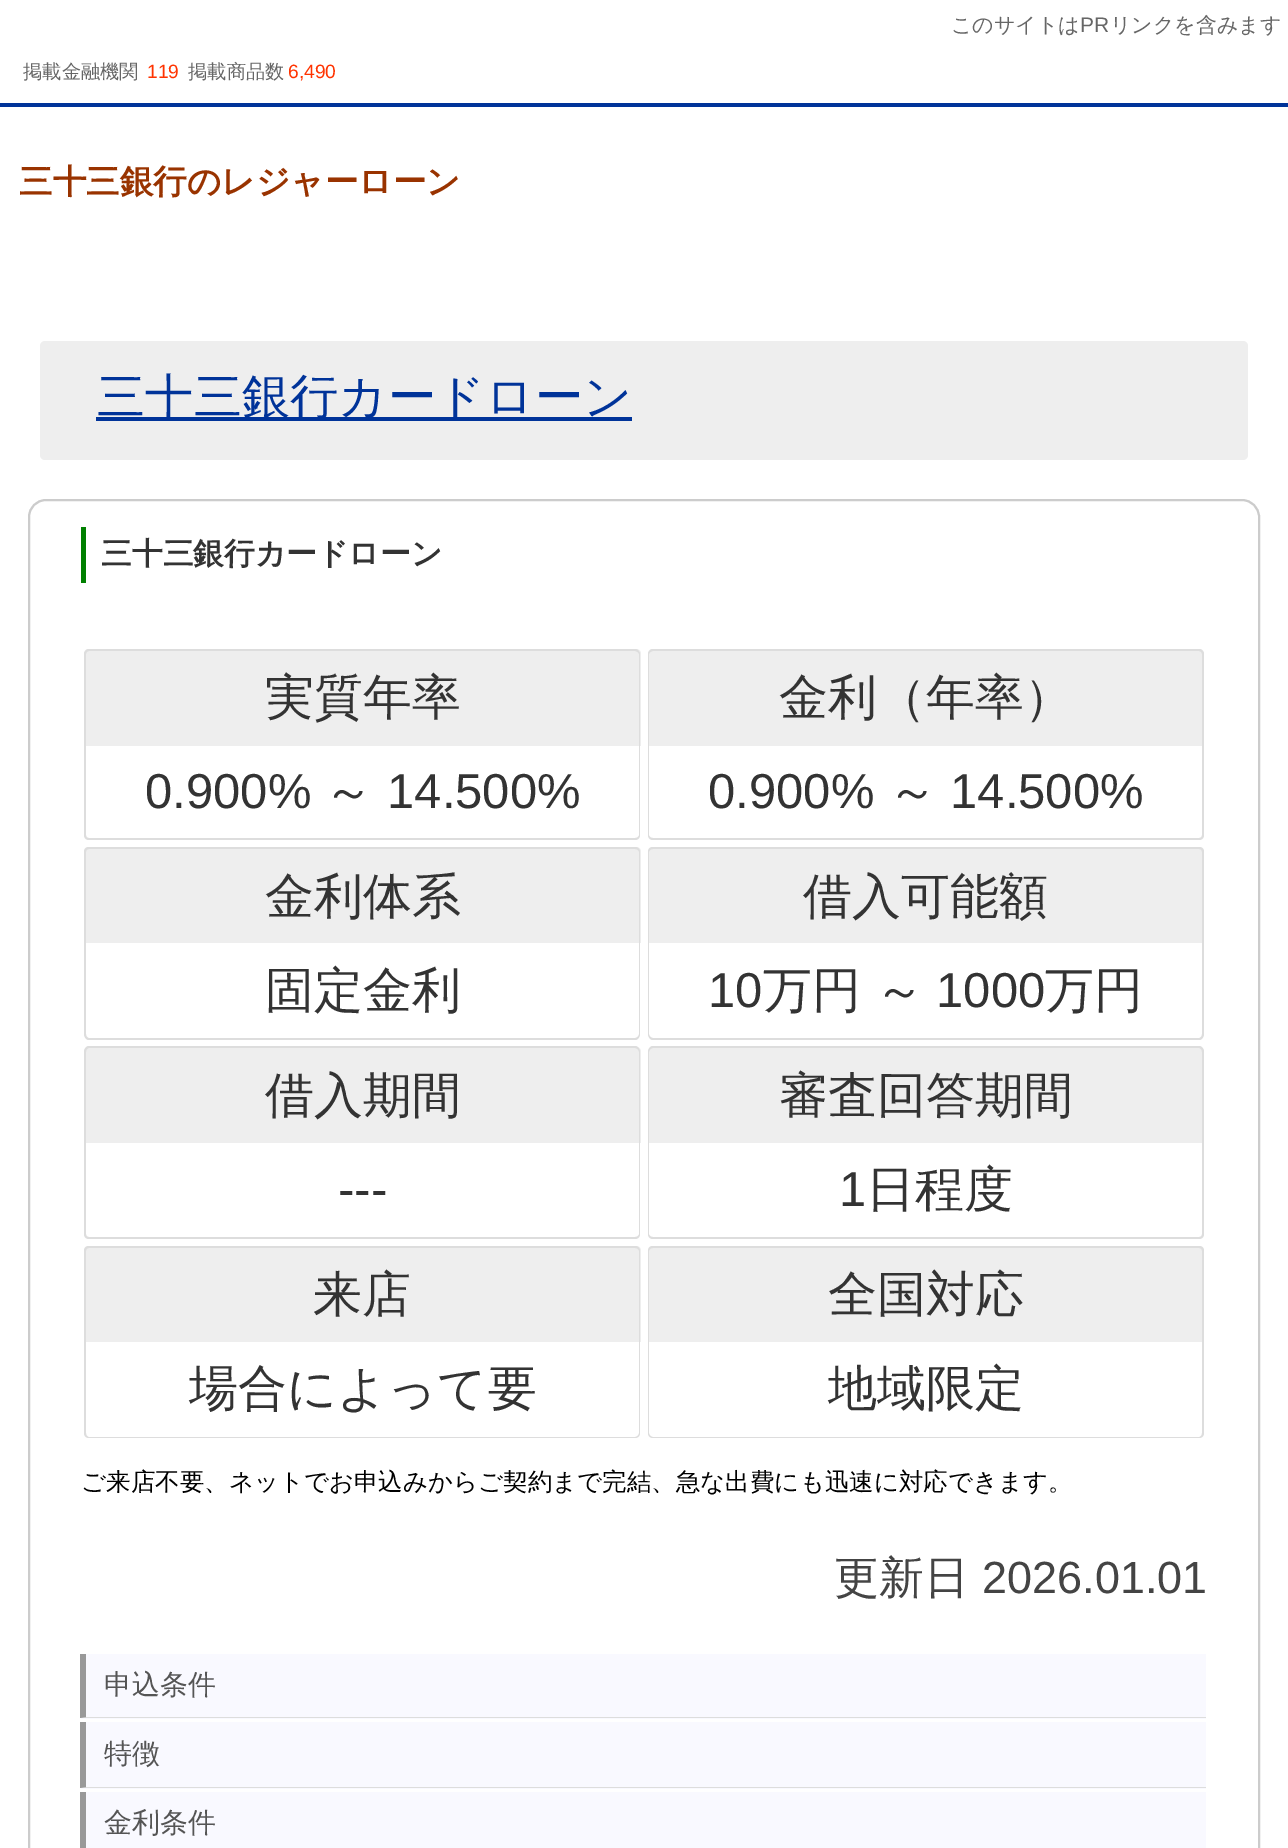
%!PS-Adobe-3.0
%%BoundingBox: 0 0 1288 1848
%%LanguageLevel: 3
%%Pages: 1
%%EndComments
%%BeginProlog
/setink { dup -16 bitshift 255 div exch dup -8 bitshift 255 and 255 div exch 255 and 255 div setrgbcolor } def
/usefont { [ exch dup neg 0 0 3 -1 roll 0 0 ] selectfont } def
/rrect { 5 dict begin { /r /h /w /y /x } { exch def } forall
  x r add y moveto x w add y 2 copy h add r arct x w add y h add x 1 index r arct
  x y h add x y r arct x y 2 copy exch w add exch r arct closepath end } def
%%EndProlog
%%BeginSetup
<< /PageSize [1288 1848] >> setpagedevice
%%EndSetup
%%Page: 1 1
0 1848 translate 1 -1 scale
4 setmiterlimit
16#FFFFFF setink
0 0 1288 1848 rectfill
/WenQuanYiZenHei-Medium 21 usefont
16#666666 setink
951 32 moveto (このサイトは) show
/LiberationSans-Regular 21 usefont
1080 32 moveto (PR) show
/WenQuanYiZenHei-Medium 21 usefont
1110 32 moveto (リンクを含みます) show
16#003399 setink
0 103 1288 4 rectfill
/WenQuanYiZenHei-Medium 19.25 usefont
16#666666 setink
23 78 moveto (掲載金融機関) show
/LiberationSans-Regular 19.25 usefont
16#FF3300 setink
147 78 moveto (119) show
/WenQuanYiZenHei-Medium 19.25 usefont
16#666666 setink
188 78 moveto (掲載商品数) show
/LiberationSans-Regular 19.25 usefont
16#FF3300 setink
288 78 moveto (6,490) show
/WenQuanYiZenHei-Bold 33.6 usefont
16#993300 setink
19 193 moveto (三十三銀行のレジャーローン) show
16#EEEEEE setink
40 341 1208 119 5 rrect fill
16#003399 setink
96 417 536 4 rectfill
/WenQuanYiZenHei-Medium 48.25 usefont
97 413 moveto (三十三銀行カードローン) show
16#CCCCCC setink
2 setlinewidth
29 500 1230 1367 17 rrect stroke
16#008000 setink
81 527 5 56 rectfill
/WenQuanYiZenHei-Bold 30.75 usefont
16#333333 setink
101 564 moveto (三十三銀行カードローン) show
16#EEEEEE setink
89 649 moveto 636 649 lineto 639 649 641 651 641 654 curveto 641 746 lineto 84 746 lineto 84 654 lineto 84 651 86 649 89 649 curveto closepath fill
16#DDDDDD setink
89 649 moveto 635 649 lineto 638 649 640 652 640 654 curveto 640 746 lineto 84 746 lineto 84 654 lineto 84 652 86 649 89 649 curveto closepath 89 651 moveto 635 651 lineto 637 651 639 653 639 654 curveto 639 746 lineto 86 746 lineto 86 654 lineto 86 653 87 651 89 651 curveto closepath eofill
/WenQuanYiZenHei-Medium 49 usefont
16#333333 setink
265 714 moveto (実質年率) show
16#DDDDDD setink
84 746 moveto 640 746 lineto 640 835 lineto 640 838 638 840 635 840 curveto 89 840 lineto 86 840 84 838 84 835 curveto closepath 86 746 moveto 639 746 lineto 639 835 lineto 639 837 637 838 635 838 curveto 89 838 lineto 87 838 86 837 86 835 curveto closepath eofill
/LiberationSans-Regular 49 usefont
16#333333 setink
145 808 moveto (0.900%) show
/WenQuanYiZenHei-Medium 49 usefont
324 808 moveto (～) show
/LiberationSans-Regular 49 usefont
387 808 moveto (14.500%) show
16#EEEEEE setink
653 649 moveto 1199 649 lineto 1202 649 1204 651 1204 654 curveto 1204 746 lineto 648 746 lineto 648 654 lineto 648 651 650 649 653 649 curveto closepath fill
16#DDDDDD setink
653 649 moveto 1199 649 lineto 1202 649 1204 652 1204 654 curveto 1204 746 lineto 648 746 lineto 648 654 lineto 648 652 650 649 653 649 curveto closepath 653 651 moveto 1199 651 lineto 1201 651 1202 653 1202 654 curveto 1202 746 lineto 649 746 lineto 649 654 lineto 649 653 651 651 653 651 curveto closepath eofill
/WenQuanYiZenHei-Medium 49 usefont
16#333333 setink
779 714 moveto (金利（年率）) show
16#DDDDDD setink
648 746 moveto 1204 746 lineto 1204 835 lineto 1204 838 1202 840 1199 840 curveto 653 840 lineto 650 840 648 838 648 835 curveto closepath 649 746 moveto 1202 746 lineto 1202 835 lineto 1202 837 1201 838 1199 838 curveto 653 838 lineto 651 838 649 837 649 835 curveto closepath eofill
/LiberationSans-Regular 49 usefont
16#333333 setink
708 808 moveto (0.900%) show
/WenQuanYiZenHei-Medium 49 usefont
888 808 moveto (～) show
/LiberationSans-Regular 49 usefont
950 808 moveto (14.500%) show
16#EEEEEE setink
89 847 moveto 636 847 lineto 639 847 641 849 641 852 curveto 641 943 lineto 84 943 lineto 84 852 lineto 84 849 86 847 89 847 curveto closepath fill
16#DDDDDD setink
89 847 moveto 635 847 lineto 638 847 640 849 640 852 curveto 640 943 lineto 84 943 lineto 84 852 lineto 84 849 86 847 89 847 curveto closepath 89 849 moveto 635 849 lineto 637 849 639 850 639 852 curveto 639 943 lineto 86 943 lineto 86 852 lineto 86 850 87 849 89 849 curveto closepath eofill
/WenQuanYiZenHei-Medium 49 usefont
16#333333 setink
265 913 moveto (金利体系) show
16#DDDDDD setink
84 943 moveto 640 943 lineto 640 1034 lineto 640 1037 638 1040 635 1040 curveto 89 1040 lineto 86 1040 84 1037 84 1034 curveto closepath 86 943 moveto 639 943 lineto 639 1034 lineto 639 1036 637 1038 635 1038 curveto 89 1038 lineto 87 1038 86 1036 86 1034 curveto closepath eofill
16#333333 setink
265 1007 moveto (固定金利) show
16#EEEEEE setink
653 847 moveto 1199 847 lineto 1202 847 1204 849 1204 852 curveto 1204 943 lineto 648 943 lineto 648 852 lineto 648 849 650 847 653 847 curveto closepath fill
16#DDDDDD setink
653 847 moveto 1199 847 lineto 1202 847 1204 849 1204 852 curveto 1204 943 lineto 648 943 lineto 648 852 lineto 648 849 650 847 653 847 curveto closepath 653 849 moveto 1199 849 lineto 1201 849 1202 850 1202 852 curveto 1202 943 lineto 649 943 lineto 649 852 lineto 649 850 651 849 653 849 curveto closepath eofill
16#333333 setink
803 913 moveto (借入可能額) show
16#DDDDDD setink
648 943 moveto 1204 943 lineto 1204 1034 lineto 1204 1037 1202 1040 1199 1040 curveto 653 1040 lineto 650 1040 648 1037 648 1034 curveto closepath 649 943 moveto 1202 943 lineto 1202 1034 lineto 1202 1036 1201 1038 1199 1038 curveto 653 1038 lineto 651 1038 649 1036 649 1034 curveto closepath eofill
/LiberationSans-Regular 49 usefont
16#333333 setink
708 1007 moveto (10) show
/WenQuanYiZenHei-Medium 49 usefont
763 1007 moveto -1 0 32 (万円 ～) widthshow
/LiberationSans-Regular 49 usefont
936 1007 moveto (1000) show
/WenQuanYiZenHei-Medium 49 usefont
1045 1007 moveto (万円) show
16#EEEEEE setink
89 1047 moveto 636 1047 lineto 639 1047 641 1049 641 1052 curveto 641 1143 lineto 84 1143 lineto 84 1052 lineto 84 1049 86 1047 89 1047 curveto closepath fill
16#DDDDDD setink
89 1046 moveto 635 1046 lineto 638 1046 640 1049 640 1052 curveto 640 1143 lineto 84 1143 lineto 84 1052 lineto 84 1049 86 1046 89 1046 curveto closepath 89 1048 moveto 635 1048 lineto 637 1048 639 1050 639 1052 curveto 639 1143 lineto 86 1143 lineto 86 1052 lineto 86 1050 87 1048 89 1048 curveto closepath eofill
16#333333 setink
265 1112 moveto (借入期間) show
16#DDDDDD setink
84 1143 moveto 640 1143 lineto 640 1234 lineto 640 1237 638 1239 635 1239 curveto 89 1239 lineto 86 1239 84 1237 84 1234 curveto closepath 86 1143 moveto 639 1143 lineto 639 1234 lineto 639 1236 637 1237 635 1237 curveto 89 1237 lineto 87 1237 86 1236 86 1234 curveto closepath eofill
/LiberationSans-Regular 49 usefont
16#333333 setink
338 1206 moveto (---) show
16#EEEEEE setink
653 1047 moveto 1199 1047 lineto 1202 1047 1204 1049 1204 1052 curveto 1204 1143 lineto 648 1143 lineto 648 1052 lineto 648 1049 650 1047 653 1047 curveto closepath fill
16#DDDDDD setink
653 1046 moveto 1199 1046 lineto 1202 1046 1204 1049 1204 1052 curveto 1204 1143 lineto 648 1143 lineto 648 1052 lineto 648 1049 650 1046 653 1046 curveto closepath 653 1048 moveto 1199 1048 lineto 1201 1048 1202 1050 1202 1052 curveto 1202 1143 lineto 649 1143 lineto 649 1052 lineto 649 1050 651 1048 653 1048 curveto closepath eofill
/WenQuanYiZenHei-Medium 49 usefont
16#333333 setink
779 1112 moveto (審査回答期間) show
16#DDDDDD setink
648 1143 moveto 1204 1143 lineto 1204 1234 lineto 1204 1237 1202 1239 1199 1239 curveto 653 1239 lineto 650 1239 648 1237 648 1234 curveto closepath 649 1143 moveto 1202 1143 lineto 1202 1234 lineto 1202 1236 1201 1237 1199 1237 curveto 653 1237 lineto 651 1237 649 1236 649 1234 curveto closepath eofill
/LiberationSans-Regular 49 usefont
16#333333 setink
839 1206 moveto (1) show
/WenQuanYiZenHei-Medium 49 usefont
866 1206 moveto (日程度) show
16#EEEEEE setink
89 1246 moveto 636 1246 lineto 639 1246 641 1248 641 1251 curveto 641 1342 lineto 84 1342 lineto 84 1251 lineto 84 1248 86 1246 89 1246 curveto closepath fill
16#DDDDDD setink
89 1246 moveto 635 1246 lineto 638 1246 640 1248 640 1251 curveto 640 1342 lineto 84 1342 lineto 84 1251 lineto 84 1248 86 1246 89 1246 curveto closepath 89 1248 moveto 635 1248 lineto 637 1248 639 1249 639 1251 curveto 639 1342 lineto 86 1342 lineto 86 1251 lineto 86 1249 87 1248 89 1248 curveto closepath eofill
16#333333 setink
313 1311 moveto (来店) show
16#DDDDDD setink
84 1342 moveto 640 1342 lineto 640 1433 lineto 640 1436 638 1438 635 1438 curveto 89 1438 lineto 86 1438 84 1436 84 1433 curveto closepath 86 1342 moveto 639 1342 lineto 639 1433 lineto 639 1435 637 1437 635 1437 curveto 89 1437 lineto 87 1437 86 1435 86 1433 curveto closepath eofill
16#333333 setink
189 1405 moveto (場合によって要) show
16#EEEEEE setink
653 1246 moveto 1199 1246 lineto 1202 1246 1204 1248 1204 1251 curveto 1204 1342 lineto 648 1342 lineto 648 1251 lineto 648 1248 650 1246 653 1246 curveto closepath fill
16#DDDDDD setink
653 1246 moveto 1199 1246 lineto 1202 1246 1204 1248 1204 1251 curveto 1204 1342 lineto 648 1342 lineto 648 1251 lineto 648 1248 650 1246 653 1246 curveto closepath 653 1248 moveto 1199 1248 lineto 1201 1248 1202 1249 1202 1251 curveto 1202 1342 lineto 649 1342 lineto 649 1251 lineto 649 1249 651 1248 653 1248 curveto closepath eofill
16#333333 setink
828 1311 moveto (全国対応) show
16#DDDDDD setink
648 1342 moveto 1204 1342 lineto 1204 1433 lineto 1204 1436 1202 1438 1199 1438 curveto 653 1438 lineto 650 1438 648 1436 648 1433 curveto closepath 649 1342 moveto 1202 1342 lineto 1202 1433 lineto 1202 1435 1201 1437 1199 1437 curveto 653 1437 lineto 651 1437 649 1435 649 1433 curveto closepath eofill
16#333333 setink
828 1405 moveto (地域限定) show
/WenQuanYiZenHei-Medium 24.5 usefont
16#000000 setink
81 1490 moveto (ご来店不要、ネットでお申込みからご契約まで完結、急な出費にも迅速に対応できます。) show
/WenQuanYiZenHei-Medium 45 usefont
16#444444 setink
834 1593 moveto (更新日) show
/LiberationSans-Regular 45 usefont
982 1593 moveto (2026.01.01) show
16#F9F9FF setink
81 1654 1125 65 rectfill
16#DDDDDD setink
1206 1718 moveto 80 1718 lineto 86 1717 lineto 1206 1717 lineto closepath fill
16#999999 setink
80 1718 moveto 80 1654 lineto 86 1654 lineto 86 1717 lineto closepath fill
/WenQuanYiZenHei-Medium 28 usefont
16#555555 setink
104 1694 moveto (申込条件) show
16#F9F9FF setink
81 1722 1125 67 rectfill
16#DDDDDD setink
1206 1788 moveto 80 1788 lineto 86 1787 lineto 1206 1787 lineto closepath fill
16#999999 setink
80 1788 moveto 80 1722 lineto 86 1722 lineto 86 1787 lineto closepath fill
16#555555 setink
104 1763 moveto (特徴) show
16#F9F9FF setink
86 1792 1120 56 rectfill
16#999999 setink
80 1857 moveto 80 1792 lineto 86 1792 lineto 86 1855 lineto closepath fill
16#555555 setink
104 1832 moveto (金利条件) show
showpage
%%EOF
